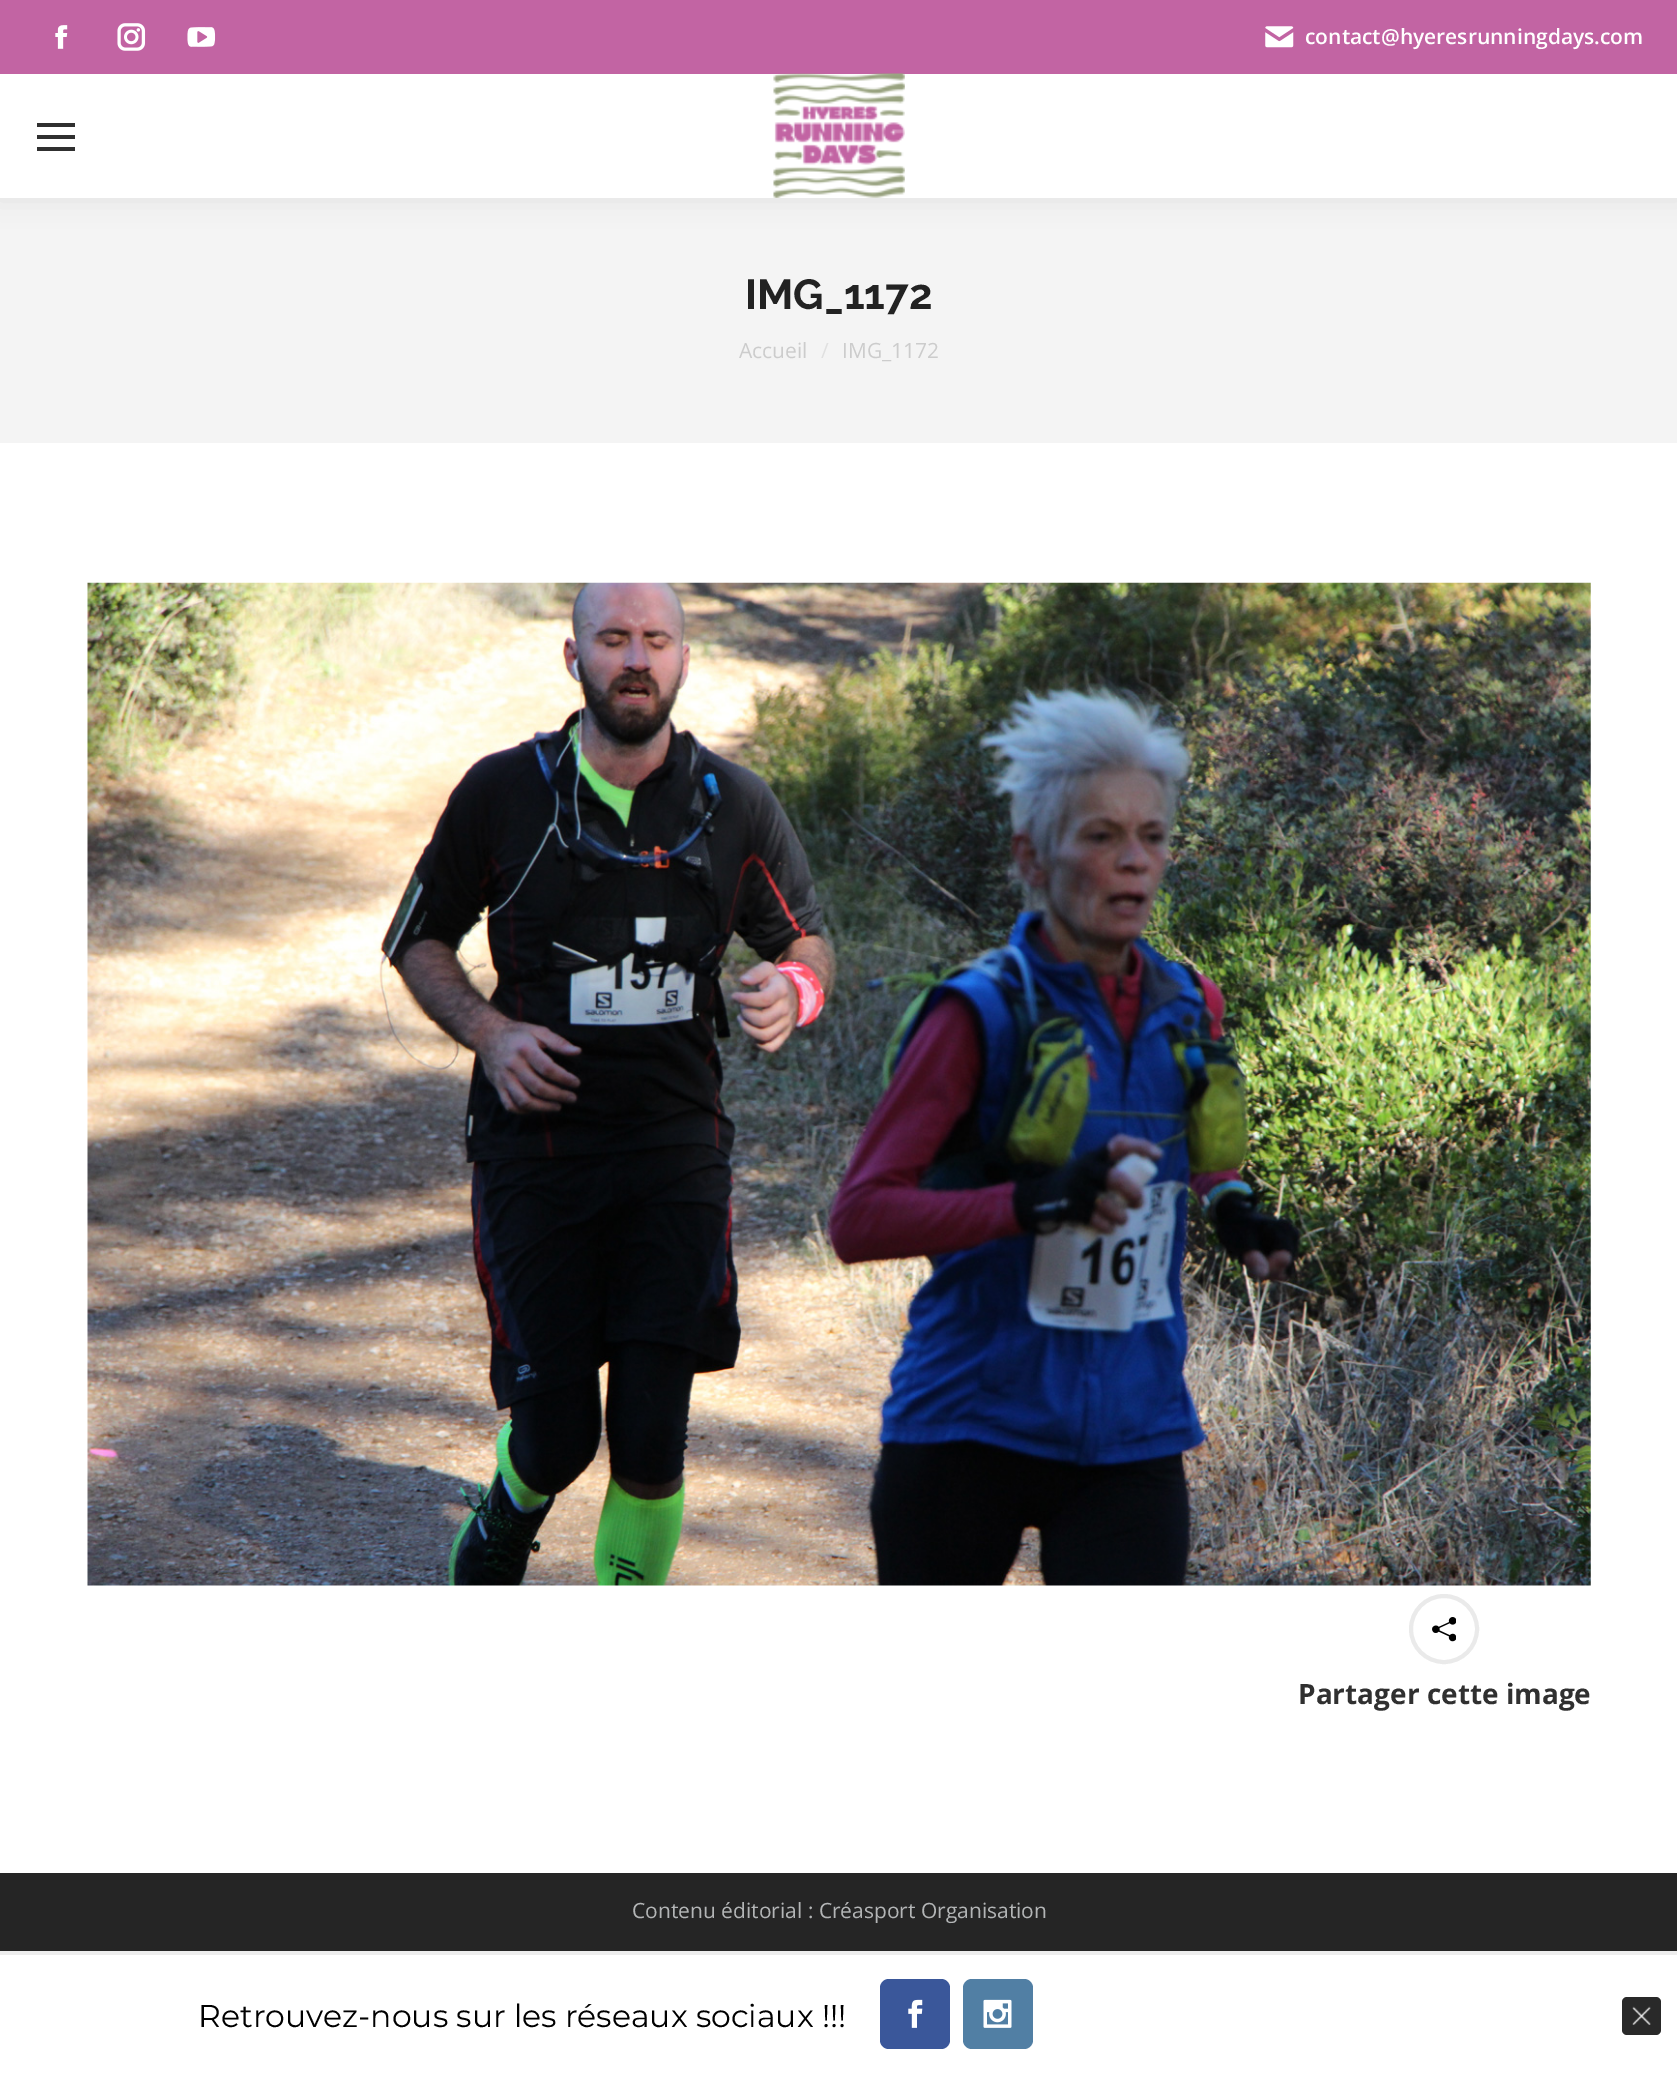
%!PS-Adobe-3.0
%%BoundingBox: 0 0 1677 2076
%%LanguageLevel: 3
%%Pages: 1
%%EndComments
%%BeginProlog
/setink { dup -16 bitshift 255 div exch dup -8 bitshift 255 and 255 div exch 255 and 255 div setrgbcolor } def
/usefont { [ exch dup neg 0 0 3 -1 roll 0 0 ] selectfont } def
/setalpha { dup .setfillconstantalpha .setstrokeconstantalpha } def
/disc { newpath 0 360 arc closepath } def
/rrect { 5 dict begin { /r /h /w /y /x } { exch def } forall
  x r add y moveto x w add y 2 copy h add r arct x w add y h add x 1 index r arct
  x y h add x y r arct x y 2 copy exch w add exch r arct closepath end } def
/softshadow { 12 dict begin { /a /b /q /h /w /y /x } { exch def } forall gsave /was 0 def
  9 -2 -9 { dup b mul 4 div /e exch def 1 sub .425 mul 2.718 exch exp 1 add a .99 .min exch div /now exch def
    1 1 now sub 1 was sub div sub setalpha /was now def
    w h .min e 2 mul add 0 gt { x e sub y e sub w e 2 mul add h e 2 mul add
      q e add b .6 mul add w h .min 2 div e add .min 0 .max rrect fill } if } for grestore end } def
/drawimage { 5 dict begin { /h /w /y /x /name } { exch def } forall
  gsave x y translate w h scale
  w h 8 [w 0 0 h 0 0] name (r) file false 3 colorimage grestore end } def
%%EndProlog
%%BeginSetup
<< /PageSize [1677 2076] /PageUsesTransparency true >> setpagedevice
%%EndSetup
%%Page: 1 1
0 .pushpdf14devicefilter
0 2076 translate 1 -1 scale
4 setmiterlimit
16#FFFFFF setink
0 0 1677 2076 rectfill
16#F4F4F4 setink
0 198 1677 245 rectfill
16#000000 setink
-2 -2 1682 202 0 13 0.07 softshadow
16#FFFFFF setink
0 74 1677 124 rectfill
16#C264A3 setink
0 0 1677 74 rectfill
(img1.raw) 55 25 13 24 drawimage
(img2.raw) 117 23 29 28 drawimage
(img3.raw) 187 27 29 20 drawimage
(img4.raw) 1265 26 29 22 drawimage
/OpenSans-SemiBold 21 usefont
16#FFFFFF setink
1305 44 moveto (contact@hyeresrunningdays.com) show
[
    [37 123 38 4 16#303030]
    [37 135 38 4 16#303030]
    [37 147 38 4 16#303030]
] { aload pop setink rectfill } forall
(img5.raw) 773 73 132 125 drawimage
/Raleway-Bold 42 usefont
16#222222 setink
745 309 moveto (IMG_1172) show
/OpenSans-Regular 21 usefont
16#CCCCCC setink
739 358 moveto (Accueil) show
16#E0E0E0 setink
821 358 moveto (/) show
16#CCCCCC setink
842 358 moveto (IMG_1172) show
(img6.raw) 87 582 1504 1004 drawimage
16#EAEAEA setink
4 setlinewidth
1444 1629 33 disc stroke
(img7.raw) 1432 1617 24 25 drawimage
/OpenSans-Bold 28 usefont
16#303030 setink
1298 1704 moveto (Partager cette image) show
16#252525 setink
0 1873 1677 78 rectfill
/OpenSans-Regular 21 usefont
16#B3B5B6 setink
632 1918 moveto (Contenu éditorial : Créasport Organisation) show
16#EDEDED setink
0 1951 1677 4 rectfill
/Montserrat-Thin 31.5 usefont
16#000000 setink
198 2027 moveto (Retrouvez-nous sur les réseaux sociaux !!!) show
16#3A579A setink
880 1979 70 70 9 rrect fill
(img8.raw) 908 1999 15 29 drawimage
16#517FA4 setink
963 1979 70 70 9 rrect fill
(img9.raw) 983 1999 29 29 drawimage
16#292929 setink
1622 1997 39 38 5 rrect fill
(img10.raw) 1632 2006 19 19 drawimage
.poppdf14devicefilter showpage
%%EOF
